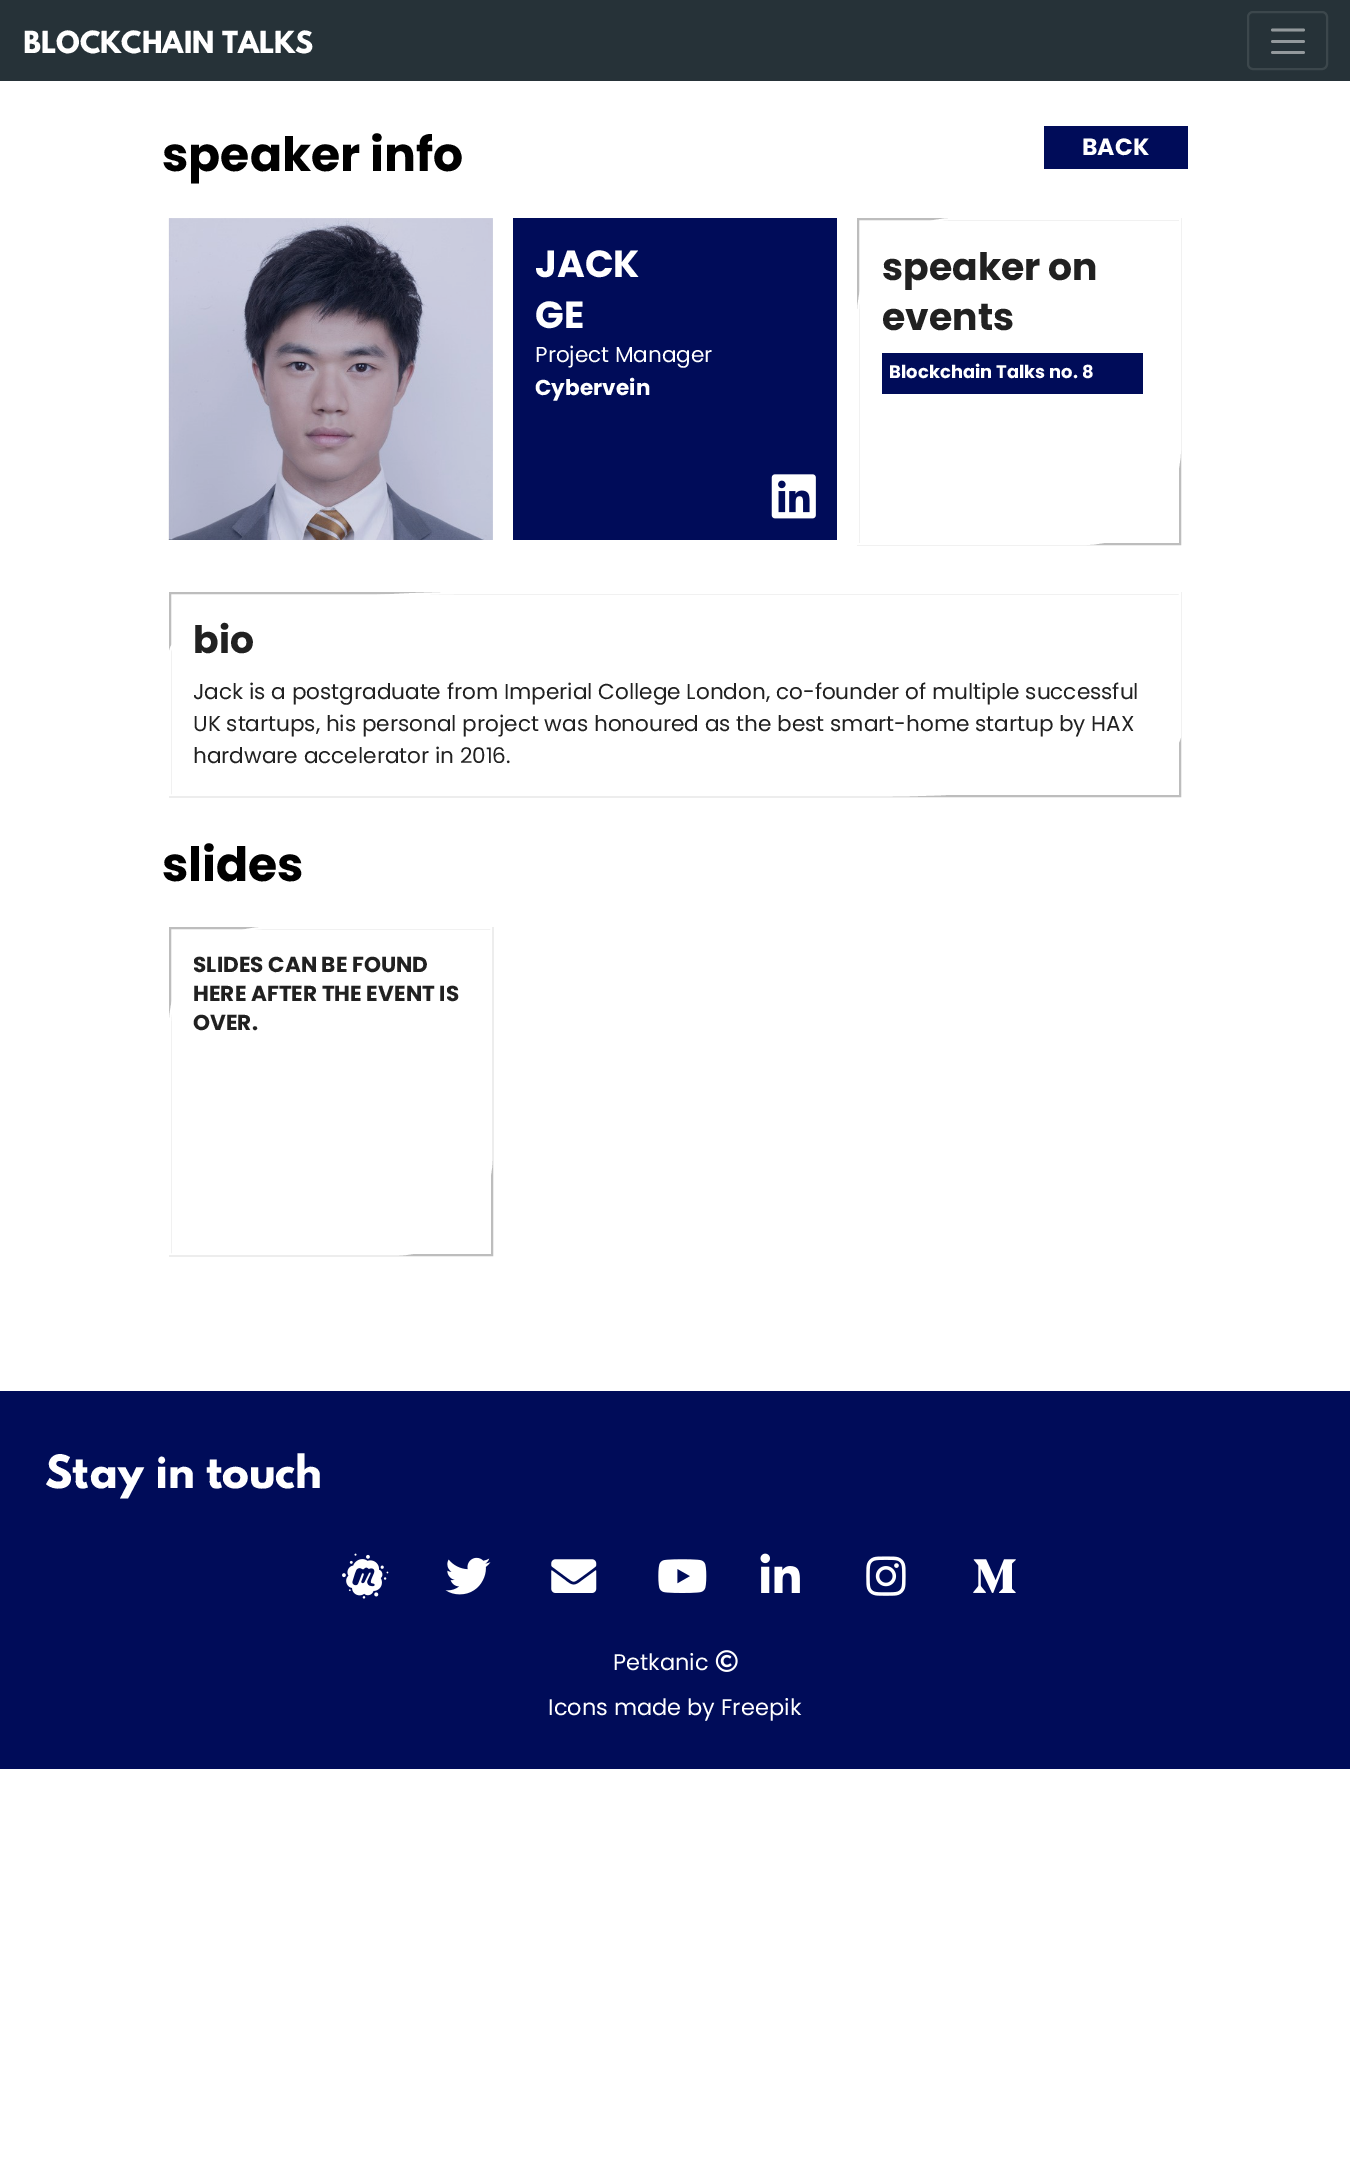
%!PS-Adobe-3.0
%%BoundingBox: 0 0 1350 2168
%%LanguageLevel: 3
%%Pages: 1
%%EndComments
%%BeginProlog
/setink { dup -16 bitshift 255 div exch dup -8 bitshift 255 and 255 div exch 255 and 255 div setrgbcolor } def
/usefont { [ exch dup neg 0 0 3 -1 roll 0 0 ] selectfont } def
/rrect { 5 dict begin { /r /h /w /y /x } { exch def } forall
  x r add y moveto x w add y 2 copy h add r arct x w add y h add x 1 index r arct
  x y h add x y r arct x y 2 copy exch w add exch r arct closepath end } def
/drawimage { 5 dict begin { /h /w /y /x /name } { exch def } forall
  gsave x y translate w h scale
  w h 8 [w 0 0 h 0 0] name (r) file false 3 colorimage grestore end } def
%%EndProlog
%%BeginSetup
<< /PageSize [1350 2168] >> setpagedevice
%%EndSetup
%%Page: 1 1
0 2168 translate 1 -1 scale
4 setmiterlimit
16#FFFFFF setink
0 0 1350 2168 rectfill
16#D9DBE6 setink
169 218 324 322 rectfill
16#263238 setink
0 0 1350 81 rectfill
/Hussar-Bold 27 usefont
16#FFFFFF setink
23 53 moveto (BLOCKCHAIN TALKS) show
16#3C474C setink
2 setlinewidth
1248 12 79 57 5 rrect stroke
16#93999C setink
2.8 setlinewidth
1 setlinecap
1272.5 30 moveto 1303.5 30 lineto 1272.5 41.5 moveto 1303.5 41.5 lineto 1272.5 52.5 moveto 1303.5 52.5 lineto stroke
/Poppins-Bold 47.25 usefont
16#000000 setink
162 171 moveto (speaker info) show
16#000C59 setink
1044 126 144 43 rectfill
/Poppins-Bold 23.5 usefont
16#FFFFFF setink
1082 155 moveto (BACK) show
(img1.raw) 168 218 325 322 drawimage
16#000C59 setink
513 218 324 322 rectfill
/Poppins-Bold 37.75 usefont
16#FFFFFF setink
535 277 moveto (JACK) show
535 328 moveto (GE) show
/Poppins-Regular 21.6 usefont
535 362 moveto (Project Manager) show
/Poppins-Bold 21.6 usefont
535 395 moveto (Cybervein) show
(img2.raw) 771 474 45 45 drawimage
16#BDBDBD setink
2 setlinewidth
0 setlinecap
858 219 322 325 rectstroke
16#FFFFFF setink
954 219 moveto 1180 219 lineto 1180 448 lineto 1180 501 1137 544 1084 544 curveto 858 544 lineto 858 315 lineto 858 262 901 219 954 219 curveto closepath stroke
/Poppins-Bold 37.75 usefont
16#212121 setink
882 280 moveto (speaker on) show
882 330 moveto (events) show
16#000C59 setink
882 353 261 41 rectfill
/Poppins-Bold 18 usefont
16#FFFFFF setink
889 378 moveto (Blockchain Talks no. 8) show
16#BDBDBD setink
170 593 1010 203 rectstroke
16#FFFFFF setink
2.2 setlinewidth
472.5 593 moveto 1180 593 lineto 1180 735 lineto 1180 768.5 1044.5 795.5 877.5 795.5 curveto 170 795.5 lineto 170 653 lineto 170 620 305.5 593 472.5 593 curveto closepath stroke
/Poppins-Bold 37.75 usefont
16#212121 setink
193 653 moveto (bio) show
/Poppins-Regular 21.6 usefont
[
    [(Jack is a postgraduate from Imperial College London, co-founder of multiple successful) 193 699]
    [(UK startups, his personal project was honoured as the best smart-home startup by HAX) 193 731]
    [(hardware accelerator in 2016.) 193 763]
] { aload pop moveto show } forall
/Poppins-Bold 47.25 usefont
16#000000 setink
162 881 moveto (slides) show
16#BDBDBD setink
2 setlinewidth
170 928 322 327 rectstroke
16#FFFFFF setink
2.2 setlinewidth
266 928 moveto 491.5 928 lineto 491.5 1157 lineto 491.5 1211 448.5 1254.5 395.5 1254.5 curveto 170 1254.5 lineto 170 1025.5 lineto 170 971.5 213 928 266 928 curveto closepath stroke
/Poppins-Bold 21.6 usefont
16#212121 setink
[
    [(SLIDES CAN BE FOUND) 193 972]
    [(HERE AFTER THE EVENT IS) 193 1001]
    [(OVER.) 193 1030]
] { aload pop moveto show } forall
16#000C59 setink
0 1391 1350 378 rectfill
/Hussar-Bold 40.5 usefont
16#FFFFFF setink
45 1488 moveto (Stay in touch) show
(img3.raw) 342 1553 47 46 drawimage
(img4.raw) 445 1557 46 38 drawimage
(img5.raw) 551 1559 46 34 drawimage
(img6.raw) 658 1559 49 34 drawimage
(img7.raw) 760 1553 40 40 drawimage
(img8.raw) 866 1556 40 40 drawimage
(img9.raw) 973 1559 43 34 drawimage
/Poppins-Regular 22.5 usefont
613 1670 moveto (Petkanic) show
(img10.raw) 715 1650 23 22 drawimage
548 1715 moveto (Icons made by Freepik) show
showpage
%%EOF
